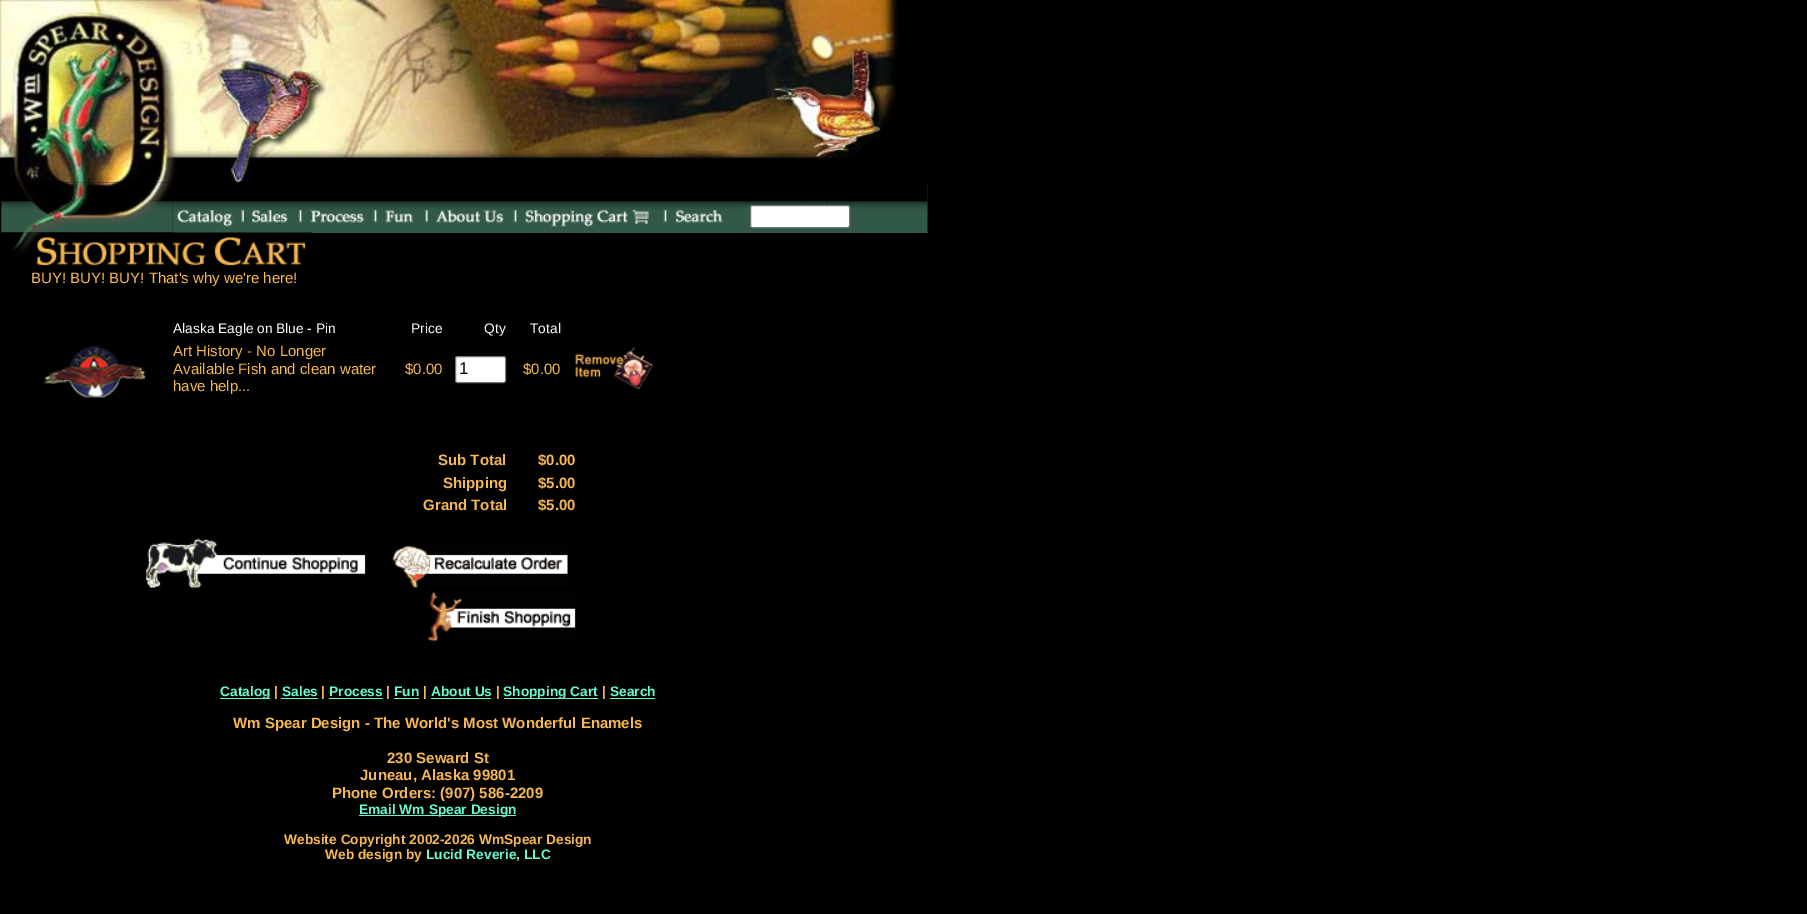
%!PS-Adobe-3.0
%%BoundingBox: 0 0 1807 914
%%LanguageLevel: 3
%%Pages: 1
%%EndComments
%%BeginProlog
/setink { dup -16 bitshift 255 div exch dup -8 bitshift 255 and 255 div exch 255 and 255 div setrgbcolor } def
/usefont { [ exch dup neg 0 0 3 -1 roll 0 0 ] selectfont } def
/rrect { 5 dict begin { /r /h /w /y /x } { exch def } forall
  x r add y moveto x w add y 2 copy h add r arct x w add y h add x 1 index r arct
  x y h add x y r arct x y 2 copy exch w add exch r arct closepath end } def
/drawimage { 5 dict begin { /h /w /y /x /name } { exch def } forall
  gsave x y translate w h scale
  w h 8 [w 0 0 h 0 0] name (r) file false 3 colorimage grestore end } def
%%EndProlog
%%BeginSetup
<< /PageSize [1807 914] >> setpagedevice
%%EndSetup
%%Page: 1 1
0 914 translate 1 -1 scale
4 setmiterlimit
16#000000 setink
0 0 1807 914 rectfill
(img1.raw) 0 0 900 183 drawimage
(img2.raw) 1 182 172 51 drawimage
16#325847 setink
173 183 755 50 rectfill
(img3.raw) 172 182 756 28 drawimage
(img4.raw) 172 210 61 23 drawimage
(img5.raw) 241 210 3 13 drawimage
(img6.raw) 252 210 36 13 drawimage
(img7.raw) 298 210 4 13 drawimage
(img8.raw) 310 210 54 13 drawimage
(img7.raw) 373 210 4 13 drawimage
(img9.raw) 385 210 29 13 drawimage
(img10.raw) 425 210 3 13 drawimage
(img11.raw) 436 210 68 13 drawimage
(img7.raw) 513 210 4 13 drawimage
(img12.raw) 525 210 124 17 drawimage
(img7.raw) 663 210 4 13 drawimage
(img13.raw) 676 210 47 13 drawimage
(img14.raw) 927 183 1 50 drawimage
(img15.raw) 1 232 311 34 drawimage
16#FFFFFF setink
750.5 205.5 99 22 2 rrect gsave fill grestore
16#767676 setink
stroke
/LiberationSans-Regular 15 usefont
16#F6B853 setink
31 283 moveto (BUY! BUY! BUY! That's why we're here!) show
(img16.raw) 41 345 107 54 drawimage
/LiberationSans-Regular 13.75 usefont
16#FFFFFF setink
[
    [(Alaska Eagle on Blue - Pin) 173 333]
    [(Price) 411 333]
    [(Qty) 484 333]
    [(Total) 530 333]
] { aload pop moveto show } forall
/LiberationSans-Regular 15 usefont
16#F6B853 setink
[
    [(Art History - No Longer) 173 356]
    [(Available Fish and clean water) 173 374]
    [(have help...) 173 391]
    [($0.00) 405 374]
] { aload pop moveto show } forall
16#FFFFFF setink
455.5 356.5 50 26 2 rrect gsave fill grestore
16#767676 setink
stroke
/LiberationSans-Regular 17 usefont
16#000000 setink
459 374 moveto (1) show
/LiberationSans-Regular 15 usefont
16#F6B853 setink
523 374 moveto ($0.00) show
(img17.raw) 575 347 78 43 drawimage
/LiberationSans-Bold 15 usefont
[
    [(Sub Total) 438 465]
    [($0.00) 538 465]
    [(Shipping) 443 488]
    [($5.00) 538 488]
    [(Grand Total) 423 510]
    [($5.00) 538 510]
] { aload pop moveto show } forall
(img18.raw) 146 538 220 50 drawimage
(img19.raw) 392 546 176 42 drawimage
(img20.raw) 427 592 149 50 drawimage
16#68F9D2 setink
220 698 50 1 rectfill
/LiberationSans-Bold 13.75 usefont
220 696 moveto (Catalog) show
16#F6B853 setink
274 696 moveto (|) show
16#68F9D2 setink
282 696 moveto (Sales) show
281 698 37 1 rectfill
16#F6B853 setink
321 696 moveto (|) show
16#68F9D2 setink
329 696 moveto (Process) show
329 698 54 1 rectfill
16#F6B853 setink
386 696 moveto (|) show
16#68F9D2 setink
394 696 moveto (Fun) show
394 698 25 1 rectfill
16#F6B853 setink
423 696 moveto (|) show
16#68F9D2 setink
431 696 moveto (About Us) show
431 698 60 1 rectfill
16#F6B853 setink
496 696 moveto (|) show
16#68F9D2 setink
504 698 94 1 rectfill
503 696 moveto (Shopping Cart) show
16#F6B853 setink
602 696 moveto (|) show
16#68F9D2 setink
610 696 moveto (Search) show
610 698 45 1 rectfill
/LiberationSans-Bold 15 usefont
16#F6B853 setink
[
    [(Wm Spear Design - The World's Most Wonderful Enamels) 233 728]
    [(230 Seward St) 387 763]
    [(Juneau, Alaska 99801) 360 780]
    [(Phone Orders: \(907\) 586-2209) 332 798]
] { aload pop moveto show } forall
16#68F9D2 setink
359 815 157 1 rectfill
/LiberationSans-Bold 13.75 usefont
359 814 moveto (Email Wm Spear Design) show
16#F6B853 setink
284 844 moveto (Website Copyright 2002-2026 WmSpear Design) show
325 859 moveto (Web design by) show
16#68F9D2 setink
426 859 moveto (Lucid Reverie, LLC) show
showpage
%%EOF
